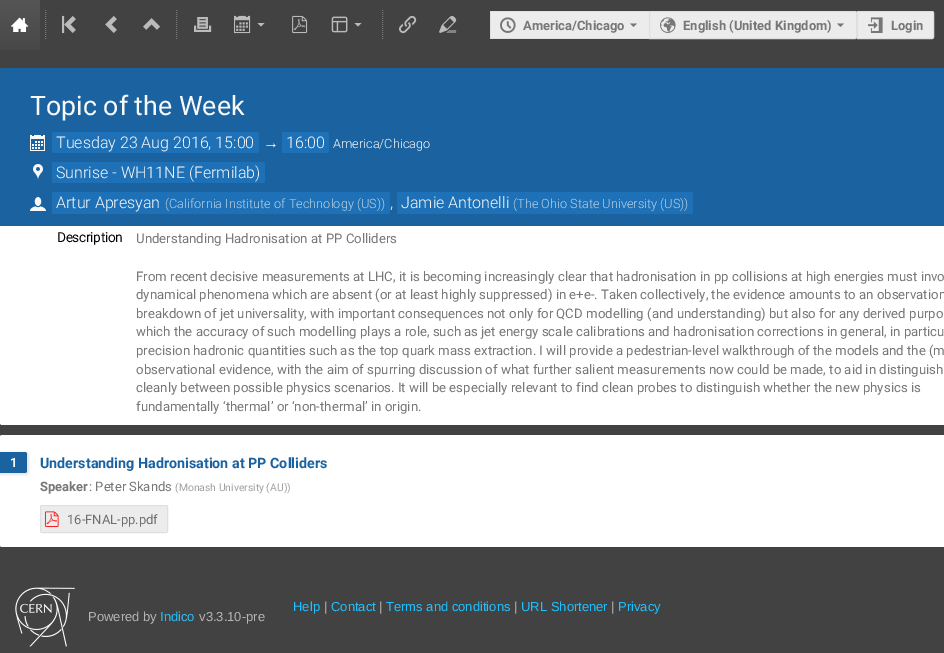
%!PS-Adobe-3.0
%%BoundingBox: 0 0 944 653
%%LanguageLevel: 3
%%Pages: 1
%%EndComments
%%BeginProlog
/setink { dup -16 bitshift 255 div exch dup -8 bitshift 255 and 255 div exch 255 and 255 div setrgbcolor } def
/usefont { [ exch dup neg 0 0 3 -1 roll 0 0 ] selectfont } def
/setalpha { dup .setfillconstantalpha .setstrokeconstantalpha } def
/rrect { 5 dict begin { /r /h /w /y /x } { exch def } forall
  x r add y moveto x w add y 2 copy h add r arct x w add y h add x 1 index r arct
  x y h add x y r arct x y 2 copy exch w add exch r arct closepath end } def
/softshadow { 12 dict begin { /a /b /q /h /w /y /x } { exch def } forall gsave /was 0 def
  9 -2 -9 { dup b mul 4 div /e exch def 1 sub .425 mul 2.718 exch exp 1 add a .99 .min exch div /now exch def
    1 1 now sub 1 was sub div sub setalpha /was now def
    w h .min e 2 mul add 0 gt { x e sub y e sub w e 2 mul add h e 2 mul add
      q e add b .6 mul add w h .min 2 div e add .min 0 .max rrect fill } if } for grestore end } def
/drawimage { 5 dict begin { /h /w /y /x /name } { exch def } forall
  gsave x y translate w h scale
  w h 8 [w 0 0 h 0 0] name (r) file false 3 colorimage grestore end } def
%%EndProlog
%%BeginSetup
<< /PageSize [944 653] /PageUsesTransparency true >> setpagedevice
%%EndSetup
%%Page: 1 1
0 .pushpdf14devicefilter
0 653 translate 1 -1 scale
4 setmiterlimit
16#424242 setink
0 0 944 653 rectfill
gsave 0 0 moveto 40 0 lineto 40 50 lineto 0 50 lineto closepath clip newpath
<< /ShadingType 2 /ColorSpace /DeviceRGB /Coords [20 0 20 50] /Extend [true true] /Function << /FunctionType 2 /Domain [0 1] /C0 [0.333 0.333 0.333] /C1 [0.282 0.282 0.282] /N 1 >> >> shfill grestore
(img1.raw) 11 17 18 15 drawimage
16#777777 setink
[1 1] 0 setdash
45.5 10 moveto 45.5 40 lineto stroke
(img2.raw) 62 15 14 19 drawimage
(img3.raw) 105 16 12 17 drawimage
(img4.raw) 143 18 17 12 drawimage
176.5 10 moveto 176.5 40 lineto stroke
(img5.raw) 194 17 18 15 drawimage
(img6.raw) 234 15 17 19 drawimage
16#BBBBBB setink
257.5 23 moveto 261 26.5 lineto 264.5 23 lineto closepath fill
(img7.raw) 292 15 16 19 drawimage
(img8.raw) 331 16 17 17 drawimage
354.5 23 moveto 358 26.5 lineto 361.5 23 lineto closepath fill
16#777777 setink
382.5 10 moveto 382.5 40 lineto stroke
(img9.raw) 399 15 18 19 drawimage
(img10.raw) 439 16 18 17 drawimage
[
    [491 12 158 26 16#ECECEC]
    [490 11 159 1 16#DFDFDF]
    [490 38 159 1 16#DFDFDF]
    [490 11 1 28 16#DFDFDF]
] { aload pop setink rectfill } forall
(img11.raw) 500 17 16 16 drawimage
/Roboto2-Bold 13 usefont
16#777777 setink
523 30 moveto (America/Chicago) show
630 23.5 moveto 633.5 27 lineto 637 23.5 lineto closepath fill
16#ECECEC setink
649.5 11.5 moveto 855 11.5 lineto 856 11.5 856.5 12 856.5 13 curveto 856.5 37 lineto 856.5 38 856 38.5 855 38.5 curveto 649.5 38.5 lineto closepath gsave fill grestore
16#DFDFDF setink
[] 0 setdash
stroke
(img12.raw) 660 17 16 16 drawimage
16#777777 setink
683 30 moveto (English \(United Kingdom\)) show
837 23.5 moveto 840.5 27 lineto 844 23.5 lineto closepath fill
16#ECECEC setink
857.5 11.5 moveto 932 11.5 lineto 933 11.5 933.5 12 933.5 13 curveto 933.5 37 lineto 933.5 38 933 38.5 932 38.5 curveto 857.5 38.5 lineto closepath gsave fill grestore
16#DFDFDF setink
stroke
(img13.raw) 868 17 15 16 drawimage
16#777777 setink
891 30 moveto (Login) show
16#1A63A0 setink
2 68 moveto 944 68 lineto 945 68 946 69 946 70 curveto 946 226 lineto 0 226 lineto 0 70 lineto 0 69 1 68 2 68 curveto closepath fill
/Roboto-Regular 26.75 usefont
16#F9F9F9 setink
30 115 moveto (Topic of the Week) show
(img14.raw) 30 135 15 16 drawimage
16#1E71B6 setink
52 132 207 21 2 rrect fill
/Roboto-Light 16 usefont
16#F9F9F9 setink
56 148 moveto (Tuesday 23 Aug 2016, 15:00) show
/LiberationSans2-Regular 16 usefont
263 148 moveto (→) show
16#1E71B6 setink
282 132 47 21 2 rrect fill
/Roboto-Light 16 usefont
16#F9F9F9 setink
286 148 moveto (16:00) show
/Roboto-Light 12.75 usefont
333 148 moveto (America/Chicago) show
(img15.raw) 33 164 10 16 drawimage
16#1E71B6 setink
52 162 213 21 2 rrect fill
/Roboto-Light 16 usefont
16#F9F9F9 setink
56 178 moveto (Sunrise - WH11NE \(Fermilab\)) show
(img16.raw) 30 197 16 14 drawimage
16#1E71B6 setink
52 192 338 22 2 rrect fill
16#F9F9F9 setink
56 208 moveto (Artur Apresyan) show
/Roboto-Light 12.75 usefont
16#B7D0E5 setink
165 208 moveto (\(California Institute of Technology \(US\)\)) show
/Roboto-Light 16 usefont
16#F9F9F9 setink
390 208 moveto (,) show
16#1E71B6 setink
397 192 296 22 2 rrect fill
16#F9F9F9 setink
401 208 moveto (Jamie Antonelli) show
/Roboto-Light 12.75 usefont
16#B7D0E5 setink
513 208 moveto (\(The Ohio State University \(US\)\)) show
16#FFFFFF setink
0 226 moveto 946 226 lineto 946 423 lineto 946 424 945 425 944 425 curveto 2 425 lineto 1 425 0 424 0 423 curveto closepath fill
/Roboto-Bold 13.2 usefont
16#000000 setink
57 242 moveto (Description) show
/Roboto-Regular 13.2 usefont
16#777777 setink
[
    [(Understanding Hadronisation at PP Colliders) 136 243]
    [(From recent decisive measurements at LHC, it is becoming increasingly clear that hadronisation in pp collisions at high energies must invo) 136 281]
    [(dynamical phenomena which are absent \(or at least highly suppressed\) in e+e-. Taken collectively, the evidence amounts to an observation) 136 299]
    [(breakdown of jet universality, with important consequences not only for QCD modelling \(and understanding\) but also for any derived purpo) 136 318]
    [(which the accuracy of such modelling plays a role, such as jet energy scale calibrations and hadronisation corrections in general, in particu) 136 336]
    [(precision hadronic quantities such as the top quark mass extraction. I will provide a pedestrian-level walkthrough of the models and the \(m) 136 355]
    [(observational evidence, with the aim of spurring discussion of what further salient measurements now could be made, to aid in distinguish) 136 374]
    [(cleanly between possible physics scenarios. It will be especially relevant to find clean probes to distinguish whether the new physics is) 136 392]
    [(fundamentally ‘thermal’ or ‘non-thermal’ in origin.) 136 411]
] { aload pop moveto show } forall
16#FFFFFF setink
0 435 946 112 2 rrect fill
16#000000 setink
-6 452 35 23 3 1 0.1 softshadow
16#1A63A0 setink
-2 452 moveto 25 452 lineto 26 452 27 453 27 454 curveto 27 471 lineto 27 472 26 473 25 473 curveto -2 473 lineto closepath fill
/Roboto2-Bold 13 usefont
16#F9F9F9 setink
10 467 moveto (1) show
/Roboto2-Bold 14.3 usefont
16#1A63A0 setink
40 468 moveto (Understanding Hadronisation at PP Colliders) show
/Roboto2-Bold 13 usefont
16#777777 setink
40 491 moveto (Speaker) show
/Roboto-Regular 13 usefont
89 491 moveto (: Peter Skands) show
/Roboto-Regular 10.4 usefont
16#A0A0A0 setink
175 491 moveto (\(Monash University \(AU\)\)) show
16#ECECEC setink
40.5 505.5 127 27 1.5 rrect gsave fill grestore
16#DFDFDF setink
stroke
(img17.raw) 44 511 15 16 drawimage
/Roboto-Regular 13 usefont
16#6E6E6E setink
67 524 moveto (16-FNAL-pp.pdf) show
/LiberationSans-Regular 13 usefont
16#21C0FF setink
293 611 moveto (Help) show
16#BBBBBB setink
324 611 moveto (|) show
16#21C0FF setink
331 611 moveto (Contact) show
16#BBBBBB setink
379 611 moveto (|) show
16#21C0FF setink
386 611 moveto (Terms and conditions) show
16#BBBBBB setink
514 611 moveto (|) show
16#21C0FF setink
521 611 moveto (URL Shortener) show
16#BBBBBB setink
611 611 moveto (|) show
16#21C0FF setink
618 611 moveto (Privacy) show
(img18.raw) 15 587 60 60 drawimage
16#B5B5B5 setink
88 621 moveto (Powered by) show
16#21C0FF setink
160 621 moveto (Indico) show
16#B5B5B5 setink
199 621 moveto (v3.3.10-pre) show
.poppdf14devicefilter showpage
%%EOF
